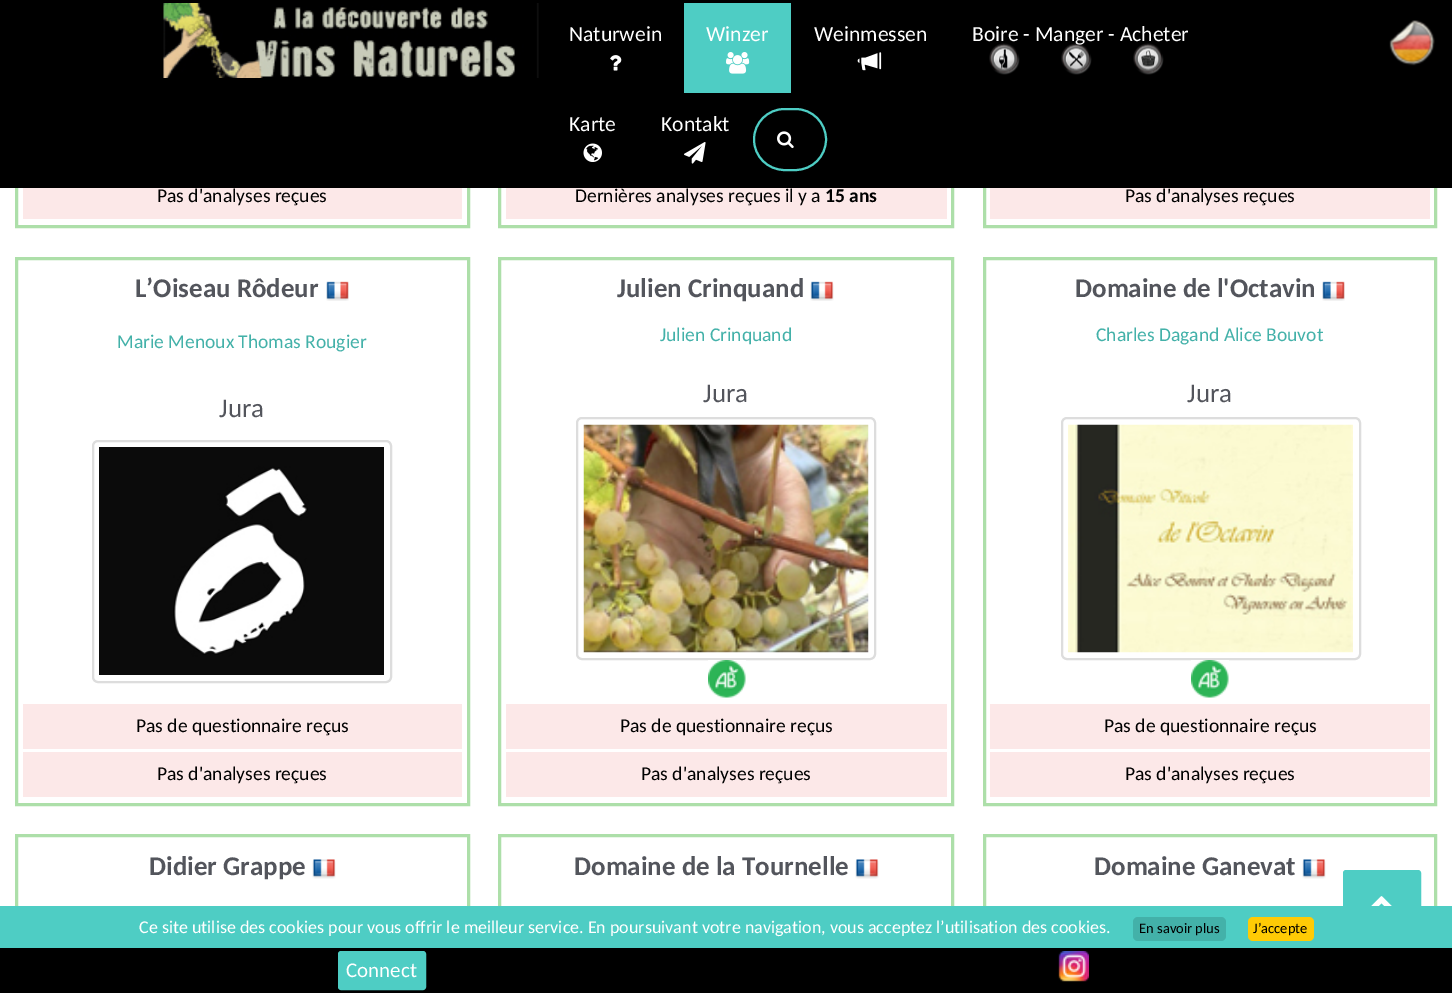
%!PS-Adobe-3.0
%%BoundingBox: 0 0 1452 993
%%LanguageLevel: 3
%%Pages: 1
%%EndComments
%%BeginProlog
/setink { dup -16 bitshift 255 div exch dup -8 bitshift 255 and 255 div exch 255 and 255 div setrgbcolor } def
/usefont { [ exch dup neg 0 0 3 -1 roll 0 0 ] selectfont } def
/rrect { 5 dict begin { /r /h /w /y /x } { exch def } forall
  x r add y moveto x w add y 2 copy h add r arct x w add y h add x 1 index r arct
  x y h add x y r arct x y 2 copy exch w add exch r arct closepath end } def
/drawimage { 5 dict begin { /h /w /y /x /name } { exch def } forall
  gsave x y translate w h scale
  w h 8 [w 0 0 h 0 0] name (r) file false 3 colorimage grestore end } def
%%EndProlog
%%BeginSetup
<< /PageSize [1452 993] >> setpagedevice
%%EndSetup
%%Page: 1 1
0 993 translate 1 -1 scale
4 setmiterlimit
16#FFFFFF setink
0 0 1452 993 rectfill
16#ADDFA9 setink
3 setlinewidth
16.5 -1.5 452 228 rectstroke
499.5 -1.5 453 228 rectstroke
984.5 -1.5 451 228 rectstroke
16#000000 setink
0 0 1452 188 rectfill
(img1.raw) 163 3 376 75 drawimage
/Carlito-Regular 21.6 usefont
16#FFFFFF setink
569 41 moveto (Naturwein) show
(img2.raw) 610 55 12 16 drawimage
16#4ECDC4 setink
684 3 107 90 rectfill
16#FFFFFF setink
706 41 moveto (Winzer) show
(img3.raw) 726 52 24 22 drawimage
814 41 moveto (Weinmessen) show
(img4.raw) 857 52 25 19 drawimage
972 41 moveto (Boire - Manger - Acheter) show
(img5.raw) 989 43 31 32 drawimage
(img6.raw) 1061 43 31 32 drawimage
(img7.raw) 1133 43 31 32 drawimage
569 131 moveto (Karte) show
(img8.raw) 583 143 19 19 drawimage
661 131 moveto (Kontakt) show
(img9.raw) 684 142 22 22 drawimage
16#4ECDC4 setink
2 setlinewidth
754 109 72 61 30.5 rrect stroke
(img10.raw) 777 131 17 18 drawimage
(img11.raw) 1389 20 46 46 drawimage
16#FCE8E8 setink
23 188 439 31 rectfill
/Carlito-Regular 19.5 usefont
16#000000 setink
157 202 moveto (Pas d'analyses reçues) show
16#FCE8E8 setink
506 188 441 31 rectfill
16#000000 setink
575 202 moveto (Dernières analyses reçues il y a) show
/Carlito-Bold 19.5 usefont
825 202 moveto (15 ans) show
16#FCE8E8 setink
990 188 440 31 rectfill
/Carlito-Regular 19.5 usefont
16#000000 setink
1125 202 moveto (Pas d'analyses reçues) show
16#ADDFA9 setink
3 setlinewidth
16.5 258.5 452 546 rectstroke
/Carlito-Bold 27 usefont
16#53555C setink
135 297 moveto (L’Oiseau Rôdeur) show
(img12.raw) 326 281 23 20 drawimage
/Carlito-Regular 19.5 usefont
16#43B1A9 setink
117 348 moveto (Marie Menoux Thomas Rougier) show
/Carlito-Regular 27 usefont
16#53555C setink
219 417 moveto (Jura) show
16#DDDDDD setink
2 setlinewidth
93 441 298 241 5 rrect stroke
(img13.raw) 99 447 285 228 drawimage
16#FCE8E8 setink
23 704 439 45 rectfill
/Carlito-Regular 19.5 usefont
16#000000 setink
136 732 moveto (Pas de questionnaire reçus) show
16#FCE8E8 setink
23 752 439 45 rectfill
16#000000 setink
157 780 moveto (Pas d'analyses reçues) show
16#ADDFA9 setink
3 setlinewidth
499.5 258.5 453 546 rectstroke
/Carlito-Bold 27 usefont
16#53555C setink
617 297 moveto (Julien Crinquand) show
(img14.raw) 810 281 24 20 drawimage
/Carlito-Regular 19.5 usefont
16#43B1A9 setink
660 341 moveto (Julien Crinquand) show
/Carlito-Regular 27 usefont
16#53555C setink
703 402 moveto (Jura) show
16#DDDDDD setink
2 setlinewidth
577 418 298 241 5 rrect stroke
(img15.raw) 583 424 286 229 drawimage
(img16.raw) 708 660 38 38 drawimage
16#FCE8E8 setink
506 704 441 45 rectfill
/Carlito-Regular 19.5 usefont
16#000000 setink
620 732 moveto (Pas de questionnaire reçus) show
16#FCE8E8 setink
506 752 441 45 rectfill
16#000000 setink
641 780 moveto (Pas d'analyses reçues) show
16#ADDFA9 setink
3 setlinewidth
984.5 258.5 451 546 rectstroke
/Carlito-Bold 27 usefont
16#53555C setink
1075 297 moveto (Domaine de l'Octavin) show
(img17.raw) 1322 281 23 20 drawimage
/Carlito-Regular 19.5 usefont
16#43B1A9 setink
1096 341 moveto (Charles Dagand Alice Bouvot) show
/Carlito-Regular 27 usefont
16#53555C setink
1187 402 moveto (Jura) show
16#DDDDDD setink
2 setlinewidth
1062 418 298 241 5 rrect stroke
(img18.raw) 1068 424 285 229 drawimage
(img16.raw) 1191 660 38 38 drawimage
16#FCE8E8 setink
990 704 440 45 rectfill
/Carlito-Regular 19.5 usefont
16#000000 setink
1104 732 moveto (Pas de questionnaire reçus) show
16#FCE8E8 setink
990 752 440 45 rectfill
16#000000 setink
1125 780 moveto (Pas d'analyses reçues) show
16#ADDFA9 setink
3 setlinewidth
16.5 835.5 452 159 rectstroke
/Carlito-Bold 27 usefont
16#53555C setink
149 875 moveto (Didier Grappe) show
(img19.raw) 312 859 24 20 drawimage
16#ADDFA9 setink
499.5 835.5 453 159 rectstroke
16#53555C setink
574 875 moveto (Domaine de la Tournelle) show
(img20.raw) 855 859 24 20 drawimage
16#ADDFA9 setink
984.5 835.5 451 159 rectstroke
16#53555C setink
1094 875 moveto (Domaine Ganevat) show
(img20.raw) 1302 859 24 20 drawimage
16#4ECDC4 setink
1344 871 76 67 2 rrect gsave fill grestore
2 setlinewidth
stroke
(img21.raw) 1371 896 21 10 drawimage
16#000000 setink
0 948 1452 45 rectfill
16#4ECDC4 setink
340 953 84 35 rectfill
339 952 86 37 2 rrect stroke
/Carlito-Regular 21 usefont
16#FFFFFF setink
346 977 moveto (Connect) show
(img22.raw) 1058 951 31 31 drawimage
16#4ECDC4 setink
0 906 1452 42 rectfill
/Carlito-Regular 18 usefont
16#FFFFFF setink
139 933 moveto (Ce site utilise des cookies pour vous offrir le meilleur service. En poursuivant votre navigation, vous acceptez l’utilisation des cookies.) show
16#43B1A9 setink
1133 917 93 24 5 rrect fill
/Carlito-Regular 14.5 usefont
16#000000 setink
1139 933 moveto (En savoir plus) show
16#FFCB05 setink
1248 917 66 24 5 rrect fill
16#000000 setink
1253 933 moveto (J’accepte) show
showpage
%%EOF
